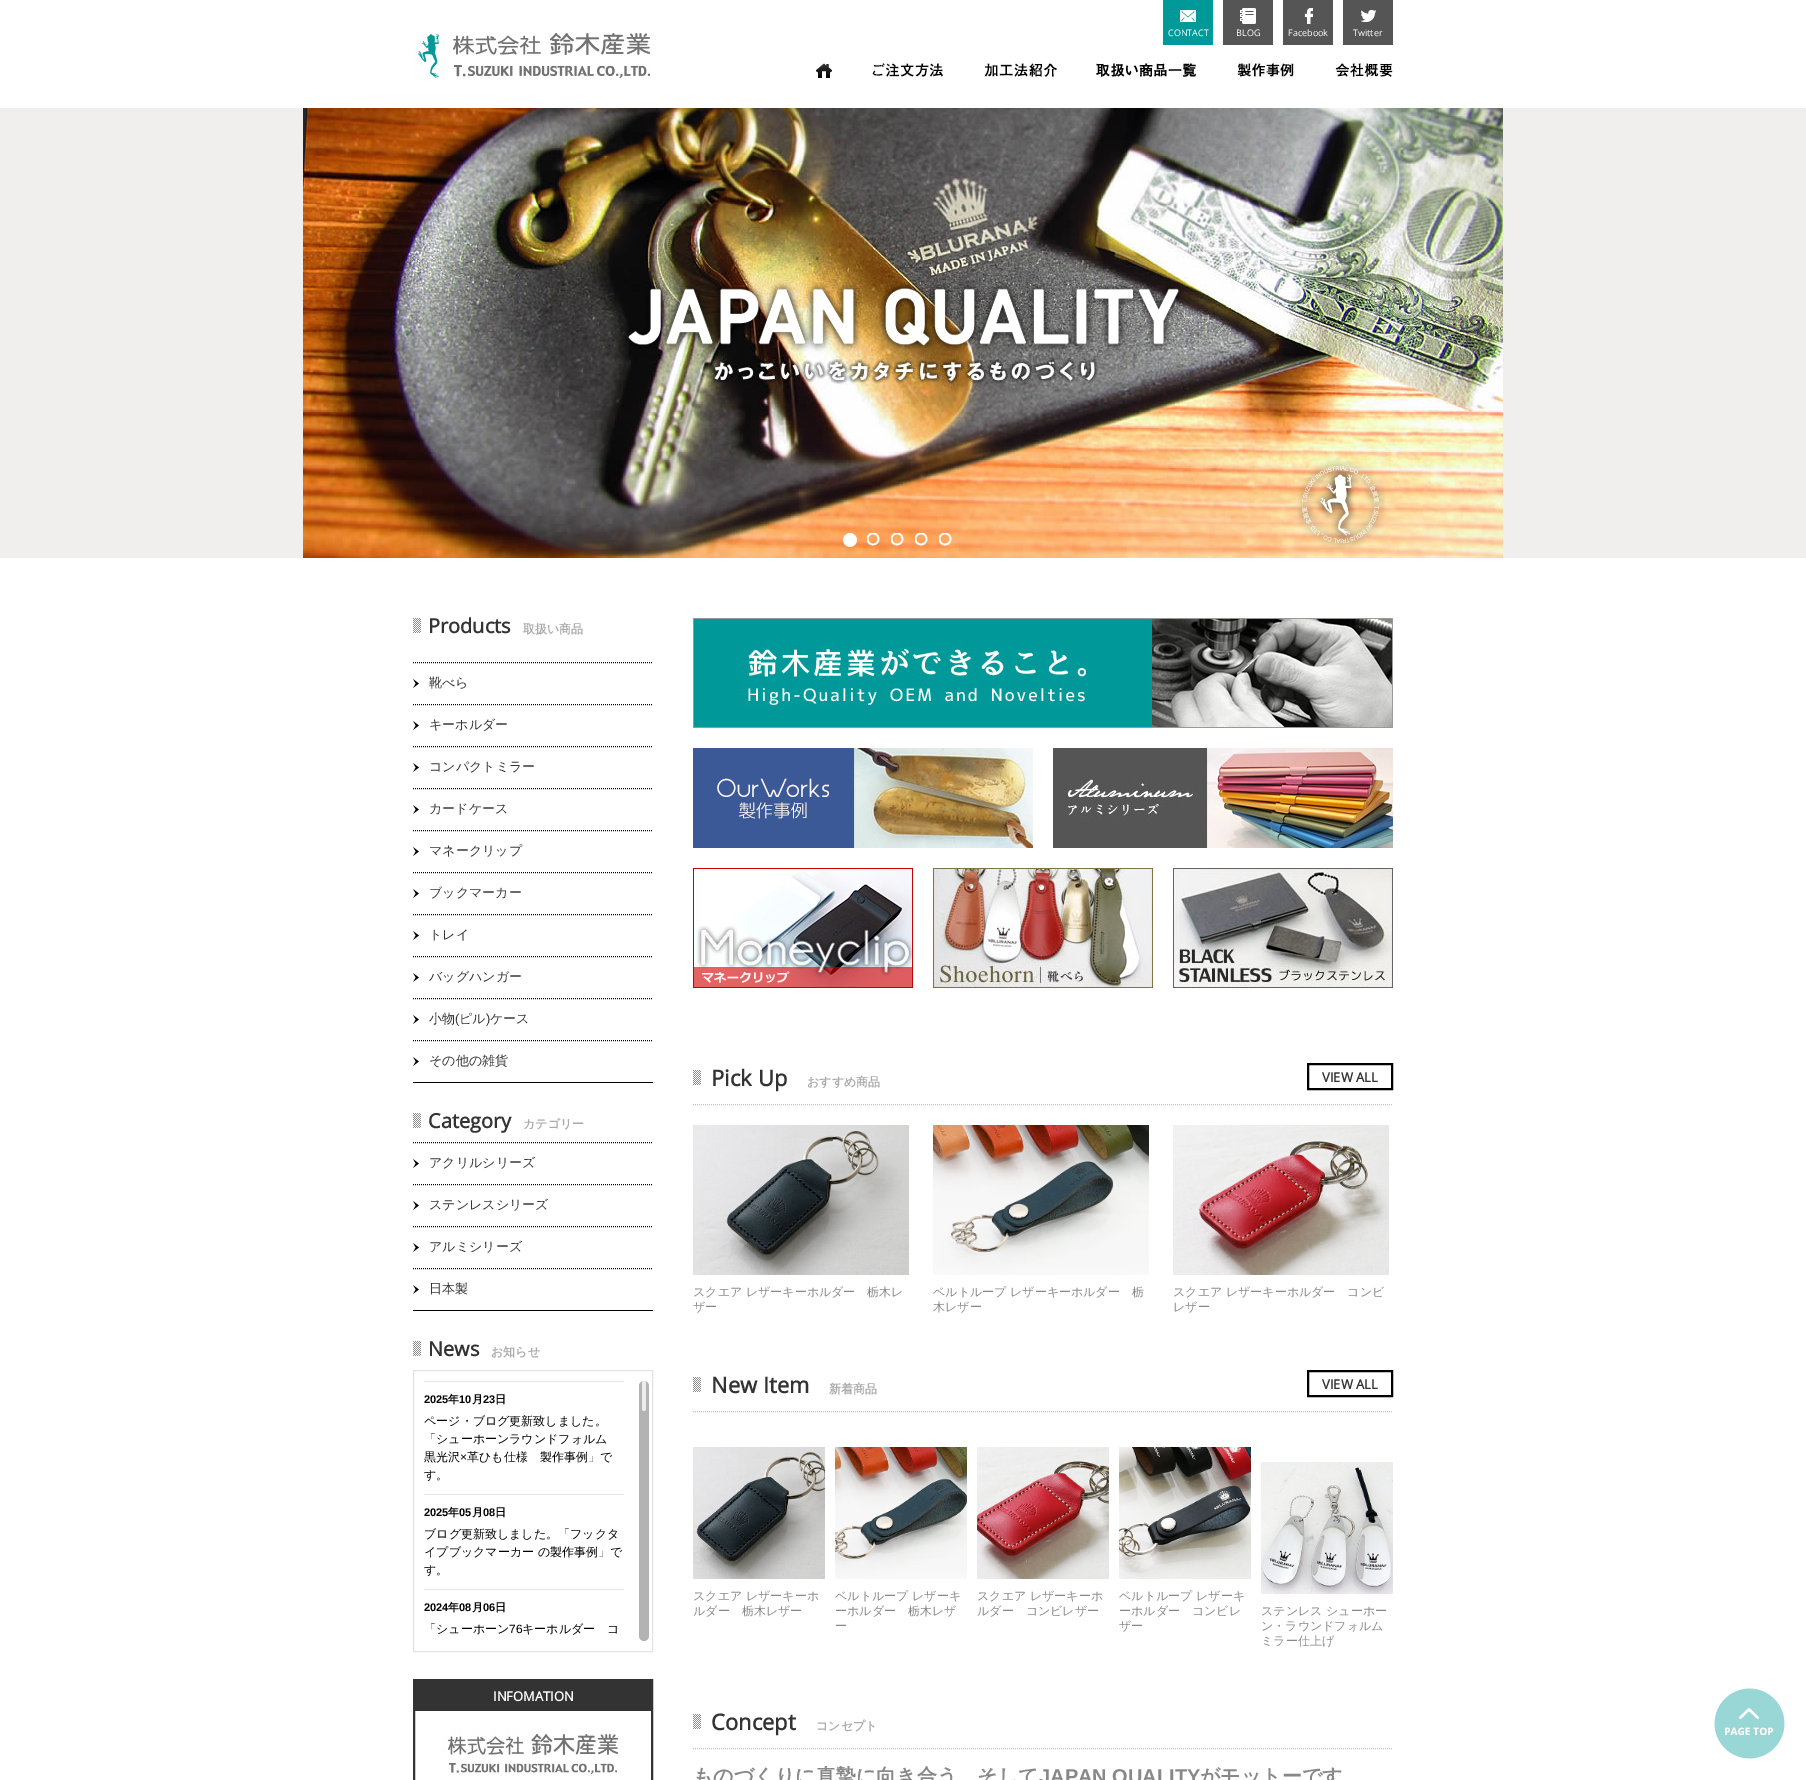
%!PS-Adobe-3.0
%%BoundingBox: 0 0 1806 1780
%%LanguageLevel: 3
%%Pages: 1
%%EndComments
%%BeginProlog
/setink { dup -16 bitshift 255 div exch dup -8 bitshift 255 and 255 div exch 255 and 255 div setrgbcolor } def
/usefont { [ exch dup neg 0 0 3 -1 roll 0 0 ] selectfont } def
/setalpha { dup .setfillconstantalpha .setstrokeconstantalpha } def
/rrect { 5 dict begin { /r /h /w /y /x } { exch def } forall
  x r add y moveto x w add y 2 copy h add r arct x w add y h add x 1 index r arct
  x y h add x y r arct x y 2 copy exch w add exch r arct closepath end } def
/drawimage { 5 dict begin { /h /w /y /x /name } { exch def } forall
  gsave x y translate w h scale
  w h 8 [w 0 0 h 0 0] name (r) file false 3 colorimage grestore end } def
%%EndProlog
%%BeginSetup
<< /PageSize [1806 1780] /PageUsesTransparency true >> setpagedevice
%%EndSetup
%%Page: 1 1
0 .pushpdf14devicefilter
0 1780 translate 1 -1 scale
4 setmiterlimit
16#FFFFFF setink
0 0 1806 1780 rectfill
(img1.raw) 413 33 238 46 drawimage
16#009999 setink
1163 0 50 45 rectfill
(img2.raw) 1180 10 16 12 drawimage
/OpenSans-Regular 9 usefont
16#FFFFFF setink
1168 36 moveto (CONTACT) show
16#555555 setink
1223 0 50 45 rectfill
(img3.raw) 1240 8 16 16 drawimage
16#FFFFFF setink
1236 36 moveto (BLOG) show
16#555555 setink
1283 0 50 45 rectfill
(img4.raw) 1304 8 9 16 drawimage
16#FFFFFF setink
1288 36 moveto (Facebook) show
16#555555 setink
1343 0 50 45 rectfill
(img5.raw) 1360 10 16 12 drawimage
16#FFFFFF setink
1353 36 moveto (Twitter) show
(img6.raw) 816 63 16 15 drawimage
(img7.raw) 872 62 71 15 drawimage
(img8.raw) 985 62 72 16 drawimage
(img9.raw) 1096 62 100 15 drawimage
(img10.raw) 1236 62 59 16 drawimage
(img11.raw) 1335 63 58 14 drawimage
16#F1EEEE setink
0 108 1806 450 rectfill
(img12.raw) 303 108 1200 450 drawimage
(img14.raw) 843 533 14 14 drawimage
(img15.raw) 867 533 13 13 drawimage
(img16.raw) 891 533 13 13 drawimage
(img17.raw) 915 533 13 13 drawimage
(img18.raw) 939 533 13 13 drawimage
(img13.raw) 603 281 782 268 drawimage
(img19.raw) 413 618 8 15 drawimage
/OpenSans-Bold 20 usefont
16#333333 setink
428 633 moveto (Products) show
/WenQuanYiZenHei-Bold 12 usefont
16#AAAAAA setink
523 633 moveto (取扱い商品) show
16#000000 setink
413 1082 240 1 rectfill
[1 1] 0 setdash
413 662.5 moveto 653 662.5 lineto stroke
(img20.raw) 413 679 6 9 drawimage
/WenQuanYiZenHei-Medium 13 usefont
16#333333 setink
429 687 moveto (靴べら) show
16#000000 setink
413 704.5 moveto 653 704.5 lineto stroke
(img20.raw) 413 721 6 9 drawimage
16#333333 setink
429 729 moveto (キーホルダー) show
16#000000 setink
413 746.5 moveto 653 746.5 lineto stroke
(img20.raw) 413 763 6 9 drawimage
16#333333 setink
429 771 moveto (コンパクトミラー) show
16#000000 setink
413 788.5 moveto 653 788.5 lineto stroke
(img20.raw) 413 805 6 9 drawimage
16#333333 setink
429 813 moveto (カードケース) show
16#000000 setink
413 830.5 moveto 653 830.5 lineto stroke
(img20.raw) 413 847 6 9 drawimage
16#333333 setink
429 855 moveto (マネークリップ) show
16#000000 setink
413 872.5 moveto 653 872.5 lineto stroke
(img20.raw) 413 889 6 9 drawimage
16#333333 setink
429 897 moveto (ブックマーカー) show
16#000000 setink
413 914.5 moveto 653 914.5 lineto stroke
(img20.raw) 413 931 6 9 drawimage
16#333333 setink
429 939 moveto (トレイ) show
16#000000 setink
413 956.5 moveto 653 956.5 lineto stroke
(img20.raw) 413 973 6 9 drawimage
16#333333 setink
429 981 moveto (バッグハンガー) show
16#000000 setink
413 998.5 moveto 653 998.5 lineto stroke
(img20.raw) 413 1015 6 9 drawimage
16#333333 setink
429 1023 moveto (小物) show
/LiberationSans-Regular 13 usefont
455 1023 moveto (\() show
/WenQuanYiZenHei-Medium 13 usefont
459 1023 moveto (ピル) show
/LiberationSans-Regular 13 usefont
486 1023 moveto (\)) show
/WenQuanYiZenHei-Medium 13 usefont
490 1023 moveto (ケース) show
16#000000 setink
413 1040.5 moveto 653 1040.5 lineto stroke
(img20.raw) 413 1057 6 9 drawimage
16#333333 setink
429 1065 moveto (その他の雑貨) show
(img19.raw) 413 1113 8 15 drawimage
/OpenSans-Bold 20 usefont
428 1128 moveto (Category) show
/WenQuanYiZenHei-Bold 12 usefont
16#AAAAAA setink
523 1128 moveto (カテゴリー) show
16#000000 setink
413 1310 240 1 rectfill
413 1142.5 moveto 653 1142.5 lineto stroke
(img20.raw) 413 1159 6 9 drawimage
/WenQuanYiZenHei-Medium 13 usefont
16#333333 setink
429 1167 moveto (アクリルシリーズ) show
16#000000 setink
413 1184.5 moveto 653 1184.5 lineto stroke
(img20.raw) 413 1201 6 9 drawimage
16#333333 setink
429 1209 moveto (ステンレスシリーズ) show
16#000000 setink
413 1226.5 moveto 653 1226.5 lineto stroke
(img20.raw) 413 1243 6 9 drawimage
16#333333 setink
429 1251 moveto (アルミシリーズ) show
16#000000 setink
413 1268.5 moveto 653 1268.5 lineto stroke
(img20.raw) 413 1285 6 9 drawimage
16#333333 setink
429 1293 moveto (日本製) show
(img19.raw) 413 1341 8 15 drawimage
/OpenSans-Bold 20 usefont
428 1356 moveto (News) show
/WenQuanYiZenHei-Bold 12 usefont
16#AAAAAA setink
491 1356 moveto (お知らせ) show
16#E3E3E3 setink
[] 0 setdash
413.5 1370.5 239 281 rectstroke
424 1381 200 1 rectfill
/LiberationSans-Bold 11 usefont
16#000000 setink
424 1403 moveto (2025) show
/WenQuanYiZenHei-Bold 11 usefont
448 1403 moveto (年) show
/LiberationSans-Bold 11 usefont
459 1403 moveto (10) show
/WenQuanYiZenHei-Bold 11 usefont
472 1403 moveto (月) show
/LiberationSans-Bold 11 usefont
483 1403 moveto (23) show
/WenQuanYiZenHei-Bold 11 usefont
495 1403 moveto (日) show
/WenQuanYiZenHei-Medium 12 usefont
[
    [(ページ・ブログ更新致しました。) 424 1425]
    [(「シューホーンラウンドフォルム) 424 1443]
    [(黒光沢) 424 1461]
] { aload pop moveto show } forall
/LiberationSans-Regular 12 usefont
460 1461 moveto (×) show
/WenQuanYiZenHei-Medium 12 usefont
467 1461 moveto (革ひも仕様　製作事例」で) show
424 1479 moveto (す。) show
16#E3E3E3 setink
424 1494 200 1 rectfill
/LiberationSans-Bold 11 usefont
16#000000 setink
424 1516 moveto (2025) show
/WenQuanYiZenHei-Bold 11 usefont
448 1516 moveto (年) show
/LiberationSans-Bold 11 usefont
459 1516 moveto (05) show
/WenQuanYiZenHei-Bold 11 usefont
472 1516 moveto (月) show
/LiberationSans-Bold 11 usefont
483 1516 moveto (08) show
/WenQuanYiZenHei-Bold 11 usefont
495 1516 moveto (日) show
/WenQuanYiZenHei-Medium 12 usefont
[
    [(ブログ更新致しました。「フックタ) 424 1538]
    [(イプブックマーカー の製作事例」で) 424 1556]
    [(す。) 424 1574]
] { aload pop moveto show } forall
16#E3E3E3 setink
424 1589 200 1 rectfill
/LiberationSans-Bold 11 usefont
16#000000 setink
424 1611 moveto (2024) show
/WenQuanYiZenHei-Bold 11 usefont
448 1611 moveto (年) show
/LiberationSans-Bold 11 usefont
459 1611 moveto (08) show
/WenQuanYiZenHei-Bold 11 usefont
472 1611 moveto (月) show
/LiberationSans-Bold 11 usefont
483 1611 moveto (06) show
/WenQuanYiZenHei-Bold 11 usefont
495 1611 moveto (日) show
/WenQuanYiZenHei-Medium 12 usefont
424 1633 moveto (「シューホーン) show
/LiberationSans-Regular 12 usefont
509 1633 moveto (76) show
/WenQuanYiZenHei-Medium 12 usefont
522 1633 moveto (キーホルダー　コ) show
16#B3B3B3 setink
639 1381 10 260 5 rrect fill
0.75 setalpha
16#FFFFFF setink
642 1381 4 30 2 rrect fill
1 setalpha
16#333333 setink
2 setlinewidth
414 1680 238 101 rectstroke
415 1681 236 30 rectfill
/OpenSans-Bold 13 usefont
16#FFFFFF setink
493 1701 moveto (INFOMATION) show
(img21.raw) 442 1729 182 47 drawimage
(img22.raw) 693 618 700 110 drawimage
(img23.raw) 693 748 340 100 drawimage
(img24.raw) 1053 748 340 100 drawimage
(img25.raw) 693 868 220 120 drawimage
(img26.raw) 933 868 220 120 drawimage
(img27.raw) 1173 868 220 120 drawimage
(img19.raw) 693 1070 8 15 drawimage
16#C2C2C2 setink
1 setlinewidth
[1 1] 0 setdash
693 1104.5 moveto 1393 1104.5 lineto stroke
/OpenSans-Bold 22 usefont
16#333333 setink
711 1086 moveto (Pick Up) show
/WenQuanYiZenHei-Bold 12 usefont
16#AAAAAA setink
807 1086 moveto (おすすめ商品) show
16#000000 setink
2 setlinewidth
[] 0 setdash
1308 1064 84 25 rectstroke
/OpenSans-Bold 13 usefont
16#333333 setink
1322 1082 moveto (VIEW ALL) show
(img28.raw) 693 1125 216 150 drawimage
/WenQuanYiZenHei-Medium 12 usefont
16#888888 setink
693 1296 moveto (スクエア レザーキーホルダー　栃木レ) show
693 1311 moveto (ザー) show
(img29.raw) 933 1125 216 150 drawimage
933 1296 moveto (ベルトループ レザーキーホルダー　栃) show
933 1311 moveto (木レザー) show
(img30.raw) 1173 1125 216 150 drawimage
1173 1296 moveto (スクエア レザーキーホルダー　コンビ) show
1173 1311 moveto (レザー) show
(img19.raw) 693 1377 8 15 drawimage
16#C2C2C2 setink
1 setlinewidth
[1 1] 0 setdash
693 1411.5 moveto 1393 1411.5 lineto stroke
/OpenSans-Bold 22 usefont
16#333333 setink
711 1393 moveto (New Item) show
/WenQuanYiZenHei-Bold 12 usefont
16#AAAAAA setink
829 1393 moveto (新着商品) show
16#000000 setink
2 setlinewidth
[] 0 setdash
1308 1371 84 25 rectstroke
/OpenSans-Bold 13 usefont
16#333333 setink
1322 1389 moveto (VIEW ALL) show
(img31.raw) 693 1447 132 132 drawimage
/WenQuanYiZenHei-Medium 12 usefont
16#888888 setink
693 1600 moveto (スクエア レザーキーホ) show
693 1615 moveto (ルダー　栃木レザー) show
(img32.raw) 835 1447 132 132 drawimage
[
    [(ベルトループ レザーキ) 835 1600]
    [(ーホルダー　栃木レザ) 835 1615]
    [(ー) 835 1630]
] { aload pop moveto show } forall
(img33.raw) 977 1447 132 132 drawimage
977 1600 moveto (スクエア レザーキーホ) show
977 1615 moveto (ルダー　コンビレザー) show
(img34.raw) 1119 1447 132 132 drawimage
[
    [(ベルトループ レザーキ) 1119 1600]
    [(ーホルダー　コンビレ) 1119 1615]
    [(ザー) 1119 1630]
] { aload pop moveto show } forall
(img35.raw) 1261 1462 132 132 drawimage
[
    [(ステンレス シューホー) 1261 1615]
    [(ン・ラウンドフォルム) 1261 1630]
    [(ミラー仕上げ) 1261 1645]
] { aload pop moveto show } forall
(img19.raw) 693 1714 8 15 drawimage
16#C2C2C2 setink
1 setlinewidth
[1 1] 0 setdash
693 1748.5 moveto 1393 1748.5 lineto stroke
/OpenSans-Bold 22 usefont
16#333333 setink
711 1730 moveto (Concept) show
/WenQuanYiZenHei-Bold 12 usefont
16#AAAAAA setink
816 1730 moveto (コンセプト) show
/WenQuanYiZenHei-Bold 20 usefont
16#888888 setink
693 1783 moveto (ものづくりに真摯に向き合う。そして) show
/LiberationSans-Bold 20 usefont
1039 1783 moveto (JAPAN QUALITY) show
/WenQuanYiZenHei-Bold 20 usefont
1200 1783 moveto (がモットーです) show
(img36.raw) 1714 1688 71 71 drawimage
.poppdf14devicefilter showpage
%%EOF
